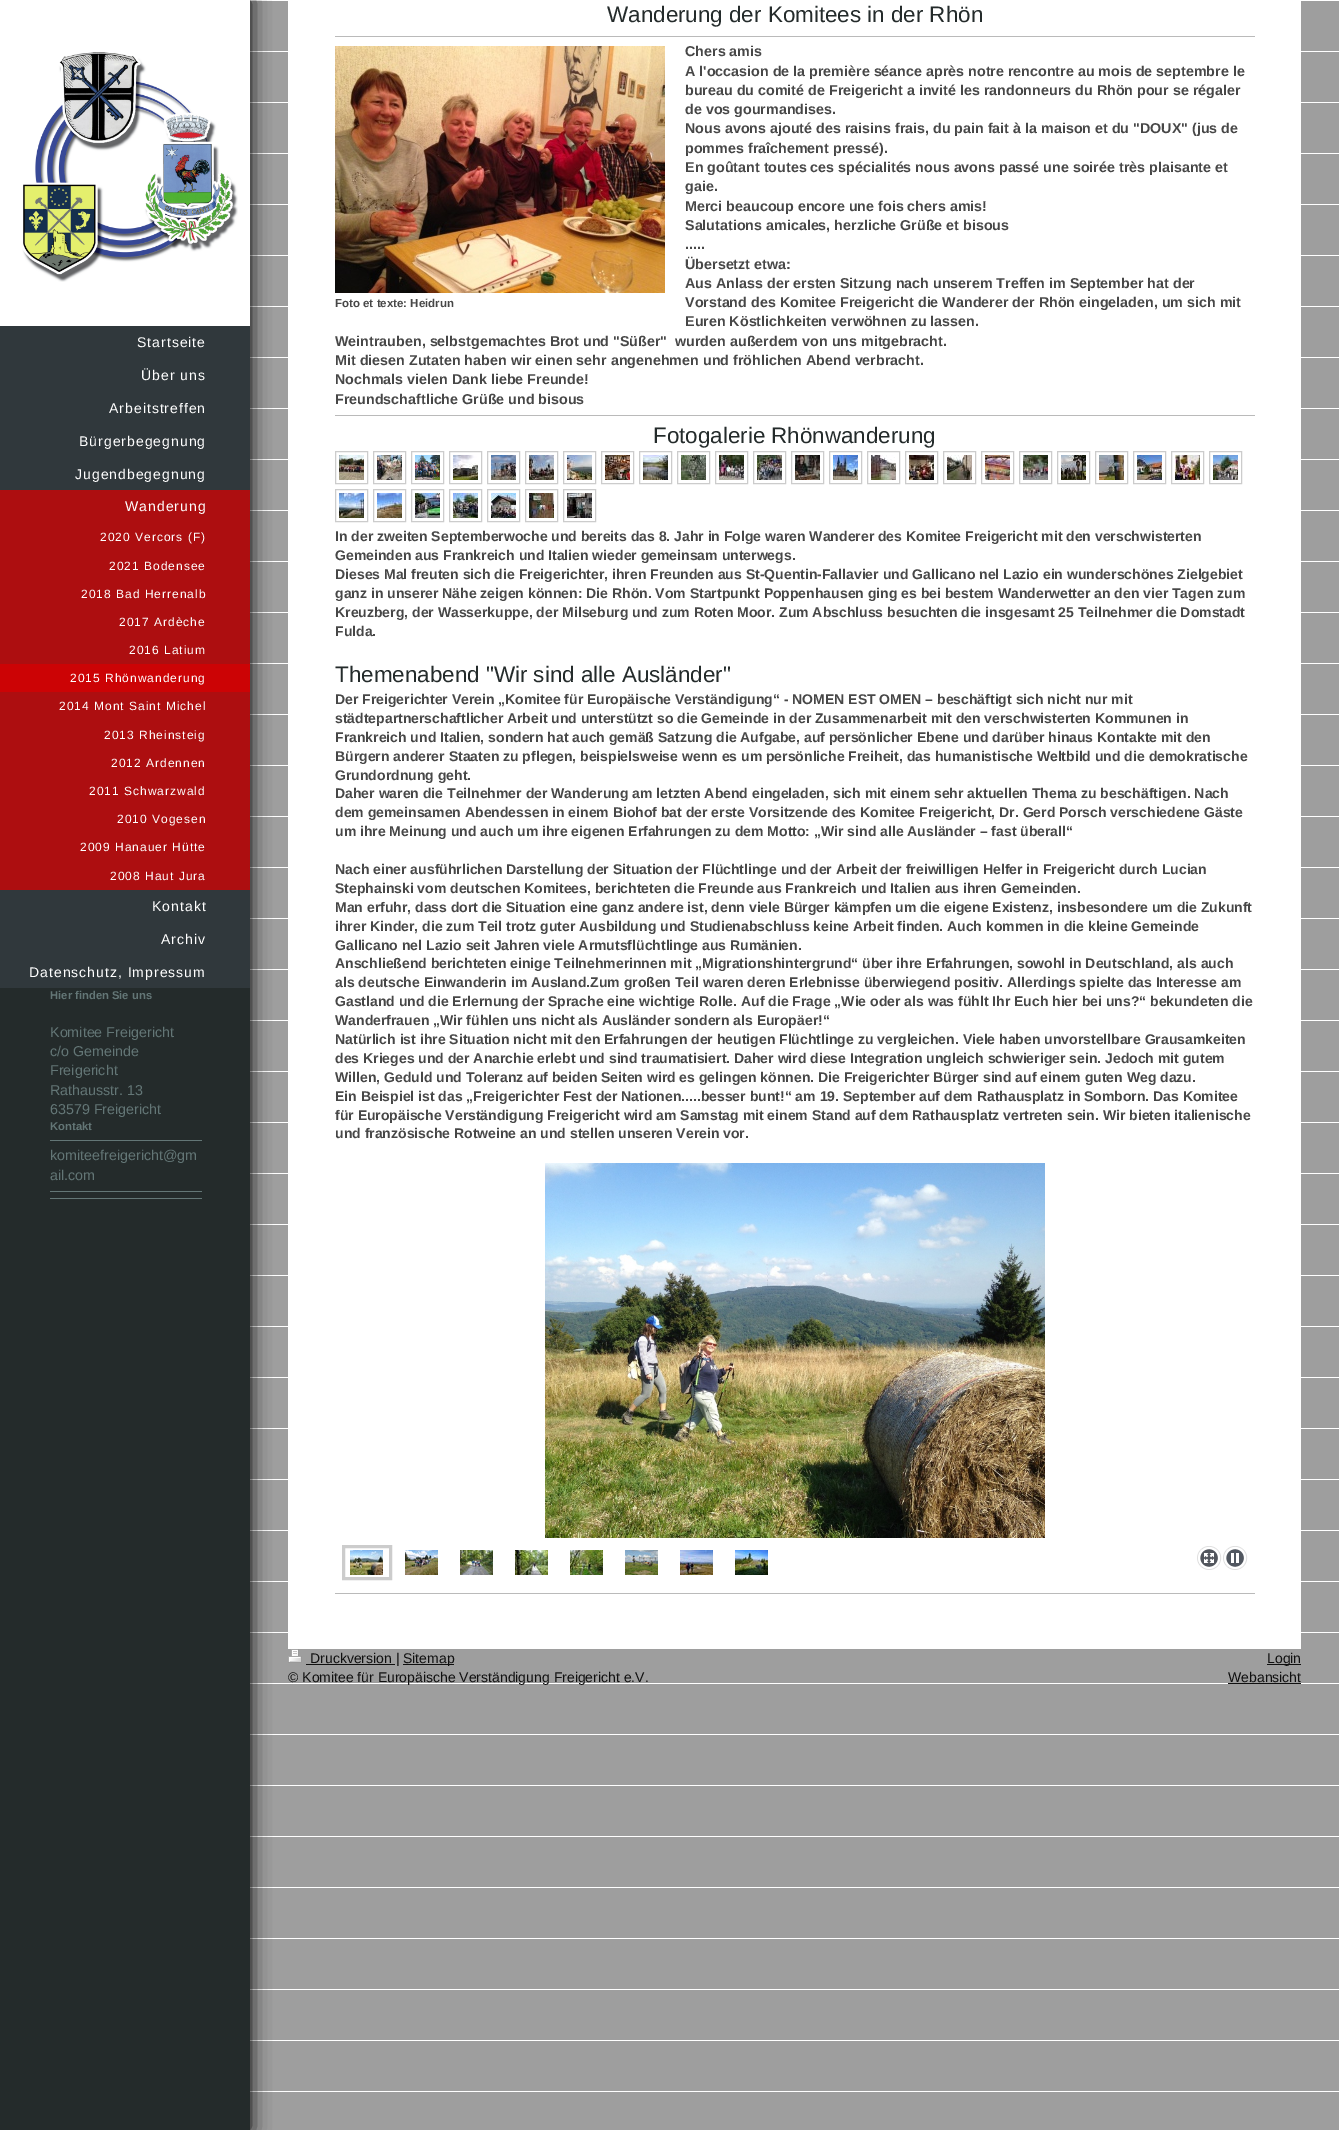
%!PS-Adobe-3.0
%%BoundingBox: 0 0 1339 2130
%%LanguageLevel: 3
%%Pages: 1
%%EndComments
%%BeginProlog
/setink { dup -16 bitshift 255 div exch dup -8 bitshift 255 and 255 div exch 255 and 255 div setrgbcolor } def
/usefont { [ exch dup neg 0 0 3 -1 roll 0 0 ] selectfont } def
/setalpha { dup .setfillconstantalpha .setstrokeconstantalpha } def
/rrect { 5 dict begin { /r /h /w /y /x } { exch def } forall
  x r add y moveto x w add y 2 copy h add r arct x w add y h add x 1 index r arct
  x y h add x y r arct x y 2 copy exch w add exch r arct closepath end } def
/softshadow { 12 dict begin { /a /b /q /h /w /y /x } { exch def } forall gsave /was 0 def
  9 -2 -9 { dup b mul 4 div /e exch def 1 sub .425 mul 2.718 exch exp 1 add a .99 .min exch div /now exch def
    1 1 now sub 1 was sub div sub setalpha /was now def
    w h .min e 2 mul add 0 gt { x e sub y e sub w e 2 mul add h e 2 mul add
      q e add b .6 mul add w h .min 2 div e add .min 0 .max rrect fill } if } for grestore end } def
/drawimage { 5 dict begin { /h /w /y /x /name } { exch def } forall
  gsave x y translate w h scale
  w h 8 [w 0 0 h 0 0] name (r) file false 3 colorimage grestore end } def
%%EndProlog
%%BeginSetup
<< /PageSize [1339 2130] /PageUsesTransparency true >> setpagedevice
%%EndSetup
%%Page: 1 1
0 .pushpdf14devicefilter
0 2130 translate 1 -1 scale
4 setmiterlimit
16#9E9E9E setink
0 0 1339 2130 rectfill
(img1.raw) 250 0 1089 2092 drawimage
16#000000 setink
0 0 250 2130 0 10 1 softshadow
16#242B2B setink
0 988 250 1142 rectfill
16#FFFFFF setink
288 1 1013 1648 rectfill
/LiberationSans-Regular 22.4 usefont
16#242B2B setink
607 22 moveto (Wanderung der Komitees in der Rhön) show
16#BABABA setink
335 36 920 1 rectfill
/LiberationSans-Bold 14.3 usefont
16#474747 setink
[
    [(Chers amis) 685 56]
    [(A l'occasion de la première séance après notre rencontre au mois de septembre le) 685 76]
    [(bureau du comité de Freigericht a invité les randonneurs du Rhön pour se régaler) 685 95]
    [(de vos gourmandises.) 685 114]
    [(Nous avons ajouté des raisins frais, du pain fait à la maison et du "DOUX" \(jus de) 685 133]
    [(pommes fraîchement pressé\).) 685 153]
    [(En goûtant toutes ces spécialités nous avons passé une soirée très plaisante et) 685 172]
    [(gaie.) 685 191]
    [(Merci beaucoup encore une fois chers amis!) 685 211]
    [(Salutations amicales, herzliche Grüße et bisous) 685 230]
    [(.....) 685 249]
    [(Übersetzt etwa:) 685 269]
    [(Aus Anlass der ersten Sitzung nach unserem Treffen im September hat der) 685 288]
    [(Vorstand des Komitee Freigericht die Wanderer der Rhön eingeladen, um sich mit) 685 307]
    [(Euren Köstlichkeiten verwöhnen zu lassen.) 685 326]
    [(Weintrauben, selbstgemachtes Brot und "Süßer"  wurden außerdem von uns mitgebracht.) 335 346]
    [(Mit diesen Zutaten haben wir einen sehr angenehmen und fröhlichen Abend verbracht.) 335 365]
    [(Nochmals vielen Dank liebe Freunde!) 335 384]
    [(Freundschaftliche Grüße und bisous) 335 404]
] { aload pop moveto show } forall
(img2.raw) 335 46 330 247 drawimage
/LiberationSans-Bold 11.5 usefont
335 307 moveto (Foto et texte: Heidrun) show
16#BABABA setink
335 415 920 1 rectfill
/LiberationSans-Regular 22.4 usefont
16#242B2B setink
653 443 moveto (Fotogalerie Rhönwanderung) show
16#CCCCCC setink
335.5 451.5 32 32 rectstroke
(img3.raw) 339 455 25 25 drawimage
373.5 451.5 32 32 rectstroke
(img4.raw) 377 455 25 25 drawimage
411.5 451.5 32 32 rectstroke
(img5.raw) 415 455 25 25 drawimage
449.5 451.5 32 32 rectstroke
(img6.raw) 453 455 25 25 drawimage
487.5 451.5 32 32 rectstroke
(img7.raw) 491 455 25 25 drawimage
525.5 451.5 32 32 rectstroke
(img8.raw) 529 455 25 25 drawimage
563.5 451.5 32 32 rectstroke
(img9.raw) 567 455 25 25 drawimage
601.5 451.5 32 32 rectstroke
(img10.raw) 605 455 25 25 drawimage
639.5 451.5 32 32 rectstroke
(img11.raw) 643 455 25 25 drawimage
677.5 451.5 32 32 rectstroke
(img12.raw) 681 455 25 25 drawimage
715.5 451.5 32 32 rectstroke
(img13.raw) 719 455 25 25 drawimage
753.5 451.5 32 32 rectstroke
(img14.raw) 757 455 25 25 drawimage
791.5 451.5 32 32 rectstroke
(img15.raw) 795 455 25 25 drawimage
829.5 451.5 32 32 rectstroke
(img16.raw) 833 455 25 25 drawimage
867.5 451.5 32 32 rectstroke
(img17.raw) 871 455 25 25 drawimage
905.5 451.5 32 32 rectstroke
(img18.raw) 909 455 25 25 drawimage
943.5 451.5 32 32 rectstroke
(img19.raw) 947 455 25 25 drawimage
981.5 451.5 32 32 rectstroke
(img20.raw) 985 455 25 25 drawimage
1019.5 451.5 32 32 rectstroke
(img21.raw) 1023 455 25 25 drawimage
1057.5 451.5 32 32 rectstroke
(img22.raw) 1061 455 25 25 drawimage
1095.5 451.5 32 32 rectstroke
(img23.raw) 1099 455 25 25 drawimage
1133.5 451.5 32 32 rectstroke
(img24.raw) 1137 455 25 25 drawimage
1171.5 451.5 32 32 rectstroke
(img25.raw) 1175 455 25 25 drawimage
1209.5 451.5 32 32 rectstroke
(img26.raw) 1213 455 25 25 drawimage
335.5 489.5 32 32 rectstroke
(img27.raw) 339 493 25 25 drawimage
373.5 489.5 32 32 rectstroke
(img28.raw) 377 493 25 25 drawimage
411.5 489.5 32 32 rectstroke
(img29.raw) 415 493 25 25 drawimage
449.5 489.5 32 32 rectstroke
(img30.raw) 453 493 25 25 drawimage
487.5 489.5 32 32 rectstroke
(img31.raw) 491 493 25 25 drawimage
525.5 489.5 32 32 rectstroke
(img32.raw) 529 493 25 25 drawimage
563.5 489.5 32 32 rectstroke
(img33.raw) 567 493 25 25 drawimage
/LiberationSans-Bold 14 usefont
16#474747 setink
[
    [(In der zweiten Septemberwoche und bereits das 8. Jahr in Folge waren Wanderer des Komitee Freigericht mit den verschwisterten) 335 541]
    [(Gemeinden aus Frankreich und Italien wieder gemeinsam unterwegs.) 335 560]
    [(Dieses Mal freuten sich die Freigerichter, ihren Freunden aus St-Quentin-Fallavier und Gallicano nel Lazio ein wunderschönes Zielgebiet) 335 579]
    [(ganz in unserer Nähe zeigen können: Die Rhön. Vom Startpunkt Poppenhausen ging es bei bestem Wanderwetter an den vier Tagen zum) 335 598]
    [(Kreuzberg, der Wasserkuppe, der Milseburg und zum Roten Moor. Zum Abschluss besuchten die insgesamt 25 Teilnehmer die Domstadt) 335 617]
    [(Fulda.) 335 636]
] { aload pop moveto show } forall
/LiberationSans-Regular 22.4 usefont
16#242B2B setink
335 682 moveto (Themenabend "Wir sind alle Ausländer") show
/LiberationSans-Bold 14 usefont
16#474747 setink
[
    [(Der Freigerichter Verein „Komitee für Europäische Verständigung“ - NOMEN EST OMEN – beschäftigt sich nicht nur mit) 335 704]
    [(städtepartnerschaftlicher Arbeit und unterstützt so die Gemeinde in der Zusammenarbeit mit den verschwisterten Kommunen in) 335 723]
    [(Frankreich und Italien, sondern hat auch gemäß Satzung die Aufgabe, auf persönlicher Ebene und darüber hinaus Kontakte mit den) 335 742]
    [(Bürgern anderer Staaten zu pflegen, beispielsweise wenn es um persönliche Freiheit, das humanistische Weltbild und die demokratische) 335 761]
    [(Grundordnung geht.) 335 780]
    [(Daher waren die Teilnehmer der Wanderung am letzten Abend eingeladen, sich mit einem sehr aktuellen Thema zu beschäftigen. Nach) 335 798]
    [(dem gemeinsamen Abendessen in einem Biohof bat der erste Vorsitzende des Komitee Freigericht, Dr. Gerd Porsch verschiedene Gäste) 335 817]
    [(um ihre Meinung und auch um ihre eigenen Erfahrungen zu dem Motto: „Wir sind alle Ausländer – fast überall“) 335 836]
    [(Nach einer ausführlichen Darstellung der Situation der Flüchtlinge und der Arbeit der freiwilligen Helfer in Freigericht durch Lucian) 335 874]
    [(Stephainski vom deutschen Komitees, berichteten die Freunde aus Frankreich und Italien aus ihren Gemeinden.) 335 893]
    [(Man erfuhr, dass dort die Situation eine ganz andere ist, denn viele Bürger kämpfen um die eigene Existenz, insbesondere um die Zukunft) 335 912]
    [(ihrer Kinder, die zum Teil trotz guter Ausbildung und Studienabschluss keine Arbeit finden. Auch kommen in die kleine Gemeinde) 335 931]
    [(Gallicano nel Lazio seit Jahren viele Armutsflüchtlinge aus Rumänien.) 335 950]
    [(Anschließend berichteten einige Teilnehmerinnen mit „Migrationshintergrund“ über ihre Erfahrungen, sowohl in Deutschland, als auch) 335 968]
    [(als deutsche Einwanderin im Ausland.Zum großen Teil waren deren Erlebnisse überwiegend positiv. Allerdings spielte das Interesse am) 335 987]
    [(Gastland und die Erlernung der Sprache eine wichtige Rolle. Auf die Frage „Wie oder als was fühlt Ihr Euch hier bei uns?“ bekundeten die) 335 1006]
    [(Wanderfrauen „Wir fühlen uns nicht als Ausländer sondern als Europäer!“) 335 1025]
    [(Natürlich ist ihre Situation nicht mit den Erfahrungen der heutigen Flüchtlinge zu vergleichen. Viele haben unvorstellbare Grausamkeiten) 335 1044]
    [(des Krieges und der Anarchie erlebt und sind traumatisiert. Daher wird diese Integration ungleich schwieriger sein. Jedoch mit gutem) 335 1063]
    [(Willen, Geduld und Toleranz auf beiden Seiten wird es gelingen können. Die Freigerichter Bürger sind auf einem guten Weg dazu.) 335 1082]
    [(Ein Beispiel ist das „Freigerichter Fest der Nationen.....besser bunt!“ am 19. September auf dem Rathausplatz in Somborn. Das Komitee) 335 1101]
    [(für Europäische Verständigung Freigericht wird am Samstag mit einem Stand auf dem Rathausplatz vertreten sein. Wir bieten italienische) 335 1120]
    [(und französische Rotweine an und stellen unseren Verein vor.) 335 1138]
] { aload pop moveto show } forall
(img34.raw) 545 1163 500 375 drawimage
16#CCCCCC setink
3 setlinewidth
343.5 1546.5 47 32 rectstroke
(img35.raw) 350 1550 33 25 drawimage
(img36.raw) 405 1550 33 25 drawimage
(img37.raw) 460 1550 33 25 drawimage
(img38.raw) 515 1550 33 25 drawimage
(img39.raw) 570 1550 33 25 drawimage
(img40.raw) 625 1550 33 25 drawimage
(img41.raw) 680 1550 33 25 drawimage
(img42.raw) 735 1550 33 25 drawimage
(img43.raw) 1197 1546 25 24 drawimage
(img44.raw) 1223 1546 25 24 drawimage
16#BABABA setink
335 1593 920 1 rectfill
(img45.raw) 288 1649 14 14 drawimage
16#101010 setink
306 1664 89 1 rectfill
/LiberationSans-Regular 14 usefont
310 1663 moveto (Druckversion |) show
403 1664 51 1 rectfill
403 1663 moveto (Sitemap) show
288 1682 moveto (© Komitee für Europäische Verständigung Freigericht e.V.) show
1267 1664 34 1 rectfill
1267 1663 moveto (Login) show
1228 1682 moveto (Webansicht) show
1228 1683 73 1 rectfill
16#FFFFFF setink
0 0 250 326 rectfill
(img46.raw) 22 52 216 230 drawimage
16#30383C setink
0 326 250 662 rectfill
16#FFFFFF setink
137 347 moveto 1 0 (Startseite) ashow
141 380 moveto 1 0 (Über uns) ashow
109 413 moveto 1 0 (Arbeitstreffen) ashow
79 446 moveto 1 0 (Bürgerbegegnung) ashow
75 479 moveto 1 0 (Jugendbegegnung) ashow
16#AD0E10 setink
0 490 250 400 rectfill
16#FFFFFF setink
125 511 moveto 1 0 (Wanderung) ashow
/LiberationSans-Regular 12 usefont
100 541 moveto 1 0 (2020 Vercors \(F\)) ashow
109 570 moveto 1 0 (2021 Bodensee) ashow
81 598 moveto 1 0 (2018 Bad Herrenalb) ashow
119 626 moveto 1 0 (2017 Ardèche) ashow
129 654 moveto 1 0 (2016 Latium) ashow
16#CC0305 setink
0 664 250 28 rectfill
16#FFFFFF setink
70 682 moveto 1 0 (2015 Rhönwanderung) ashow
59 710 moveto 1 0 (2014 Mont Saint Michel) ashow
104 739 moveto 1 0 (2013 Rheinsteig) ashow
111 767 moveto 1 0 (2012 Ardennen) ashow
89 795 moveto 1 0 (2011 Schwarzwald) ashow
117 823 moveto 1 0 (2010 Vogesen) ashow
80 851 moveto 1 0 (2009 Hanauer Hütte) ashow
110 880 moveto 1 0 (2008 Haut Jura) ashow
/LiberationSans-Regular 14 usefont
152 911 moveto 1 0 (Kontakt) ashow
161 944 moveto 1 0 (Archiv) ashow
29 977 moveto 1 0 (Datenschutz, Impressum) ashow
/LiberationSans-Bold 11.25 usefont
16#637676 setink
50 999 moveto (Hier finden Sie uns) show
/LiberationSans-Regular 14.3 usefont
[
    [(Komitee Freigericht) 50 1037]
    [(c/o Gemeinde) 50 1056]
    [(Freigericht) 50 1075]
    [(Rathausstr. 13) 50 1095]
    [(63579 Freigericht) 50 1114]
] { aload pop moveto show } forall
/LiberationSans-Bold 11.25 usefont
50 1130 moveto (Kontakt) show
50 1140 152 1 rectfill
/LiberationSans-Regular 14.3 usefont
50 1160 moveto (komiteefreigericht@gm) show
50 1180 moveto (ail.com) show
50 1191 152 1 rectfill
50 1198 152 1 rectfill
.poppdf14devicefilter showpage
%%EOF
